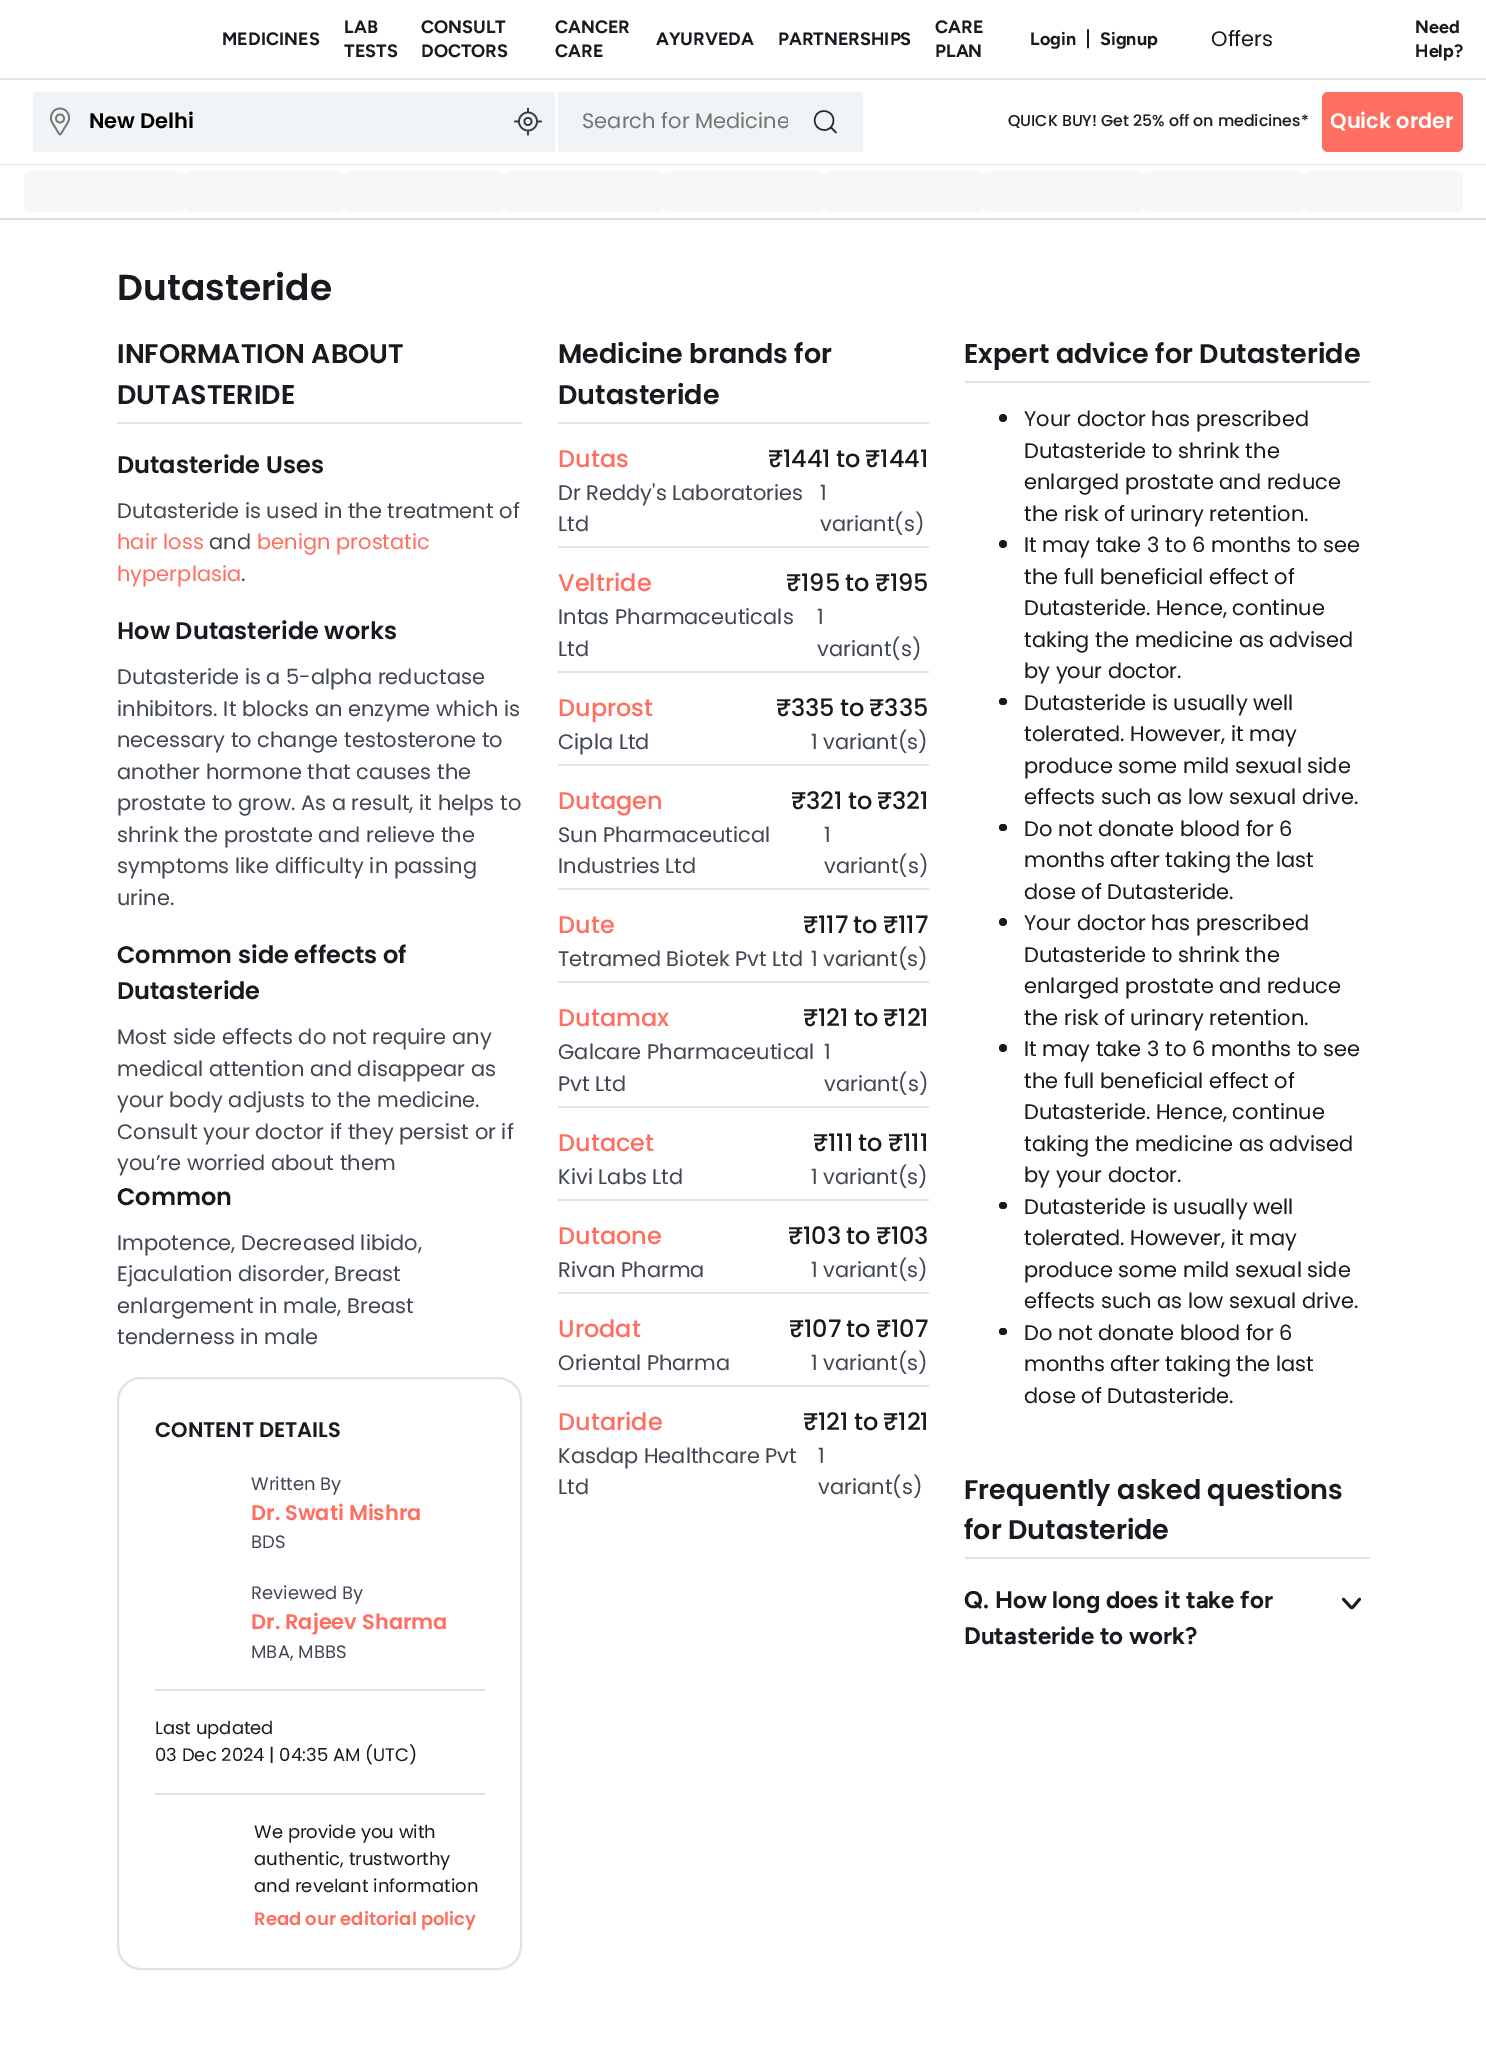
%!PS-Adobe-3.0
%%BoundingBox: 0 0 1486 2071
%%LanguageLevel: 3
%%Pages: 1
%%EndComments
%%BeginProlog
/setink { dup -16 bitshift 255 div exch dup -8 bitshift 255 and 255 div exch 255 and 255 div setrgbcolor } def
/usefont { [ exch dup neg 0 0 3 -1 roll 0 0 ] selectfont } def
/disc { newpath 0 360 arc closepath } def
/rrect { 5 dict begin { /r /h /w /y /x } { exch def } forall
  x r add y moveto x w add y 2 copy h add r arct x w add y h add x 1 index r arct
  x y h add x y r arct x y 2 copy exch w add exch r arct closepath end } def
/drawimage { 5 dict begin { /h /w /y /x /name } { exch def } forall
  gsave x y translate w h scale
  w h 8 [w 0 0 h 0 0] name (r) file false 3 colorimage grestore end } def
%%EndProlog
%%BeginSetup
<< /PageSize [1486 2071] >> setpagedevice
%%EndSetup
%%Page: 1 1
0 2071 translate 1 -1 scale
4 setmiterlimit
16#FFFFFF setink
0 0 1486 2071 rectfill
/Figtree-Bold 18 usefont
16#181A1F setink
[
    [(MEDICINES) 222 45]
    [(LAB) 344 33]
    [(TESTS) 344 57]
    [(CONSULT) 421 33]
    [(DOCTORS) 421 57]
    [(CANCER) 555 33]
    [(CARE) 555 57]
    [(AYURVEDA) 656 45]
    [(PARTNERSHIPS) 778 45]
    [(CARE) 935 33]
    [(PLAN) 935 57]
    [(Login) 1030 45]
] { aload pop moveto show } forall
/Poppins-Regular 21 usefont
1085 46 moveto (|) show
/Figtree-Bold 18 usefont
1100 45 moveto (Signup) show
/Poppins-Regular 21 usefont
1211 46 moveto (Offers) show
/Figtree-Bold 18 usefont
1415 33 moveto (Need) show
1415 57 moveto (Help?) show
16#DDE2EB setink
0 78 1486 2 rectfill
16#F1F4F6 setink
33 92 522 60 rectfill
(img1.raw) 49 107 22 29 drawimage
/Poppins-SemiBold 21 usefont
16#000000 setink
89 128 moveto (New Delhi) show
(img2.raw) 514 107 28 29 drawimage
16#F1F4F6 setink
558 92 305 60 rectfill
gsave
582 107 206 31 rectclip
/Poppins-Regular 21 usefont
16#757575 setink
582 128 moveto (Search for Medicine) show
grestore
16#2B2B2B setink
1.5 setlinewidth
1 setlinecap
1 setlinejoin
824 111 moveto 826.5 111 829 112 831 114 curveto 836.5 119.5 832.5 130.5 824 130 curveto 811.5 129.5 811.5 111 824 111 curveto closepath 836 132.5 moveto 831 127.5 lineto stroke
/Poppins-Medium 15.75 usefont
16#181A1F setink
1008 126 moveto (QUICK BUY! Get 25% off on medicines*) show
16#FF6F61 setink
1322 92 141 60 6 rrect fill
gsave
1331 107 123 31 rectclip
/Poppins-SemiBold 21 usefont
16#FFFFFF setink
1330 128 moveto (Quick order) show
grestore
16#DDE2EB setink
0 164 1486 1 rectfill
16#DEDEDE setink
0 218 1486 2 rectfill
16#F6F7F8 setink
24 171 161 41 6 rrect fill
185 171 159 41 6 rrect fill
344 171 160 41 6 rrect fill
504 171 159 41 6 rrect fill
663 171 161 41 6 rrect fill
824 171 159 41 6 rrect fill
983 171 160 41 6 rrect fill
1143 171 161 41 6 rrect fill
1304 171 159 41 6 rrect fill
/Poppins-SemiBold 36 usefont
16#181A1F setink
117 300 moveto (Dutasteride) show
/Poppins-SemiBold 27 usefont
117 363 moveto (INFORMATION ABOUT) show
117 404 moveto (DUTASTERIDE) show
16#DDE2EB setink
117 422 405 2 rectfill
/Poppins-SemiBold 24 usefont
16#181A1F setink
117 473 moveto (Dutasteride Uses) show
/Poppins-Regular 21 usefont
16#414752 setink
117 518 moveto (Dutasteride is used in the treatment of) show
16#FF6F61 setink
117 549 moveto (hair loss) show
16#414752 setink
209 549 moveto (and) show
16#FF6F61 setink
257 549 moveto (benign prostatic) show
117 581 moveto (hyperplasia) show
16#414752 setink
241 581 moveto (.) show
/Poppins-SemiBold 24 usefont
16#181A1F setink
117 639 moveto (How Dutasteride works) show
/Poppins-Regular 21 usefont
16#414752 setink
[
    [(Dutasteride is a 5-alpha reductase) 117 684]
    [(inhibitors. It blocks an enzyme which is) 117 716]
    [(necessary to change testosterone to) 117 747]
    [(another hormone that causes the) 117 779]
    [(prostate to grow. As a result, it helps to) 117 810]
    [(shrink the prostate and relieve the) 117 842]
    [(symptoms like difficulty in passing) 117 873]
    [(urine.) 117 905]
] { aload pop moveto show } forall
/Poppins-SemiBold 24 usefont
16#181A1F setink
117 963 moveto (Common side effects of) show
117 999 moveto (Dutasteride) show
/Poppins-Regular 21 usefont
16#414752 setink
[
    [(Most side effects do not require any) 117 1044]
    [(medical attention and disappear as) 117 1076]
    [(your body adjusts to the medicine.) 117 1107]
    [(Consult your doctor if they persist or if) 117 1139]
    [(you’re worried about them) 117 1170]
] { aload pop moveto show } forall
/Poppins-SemiBold 24 usefont
16#181A1F setink
117 1205 moveto (Common) show
/Poppins-Regular 21 usefont
16#414752 setink
[
    [(Impotence, Decreased libido,) 117 1250]
    [(Ejaculation disorder, Breast) 117 1281]
    [(enlargement in male, Breast) 117 1313]
    [(tenderness in male) 117 1344]
] { aload pop moveto show } forall
16#DDE2EB setink
2 setlinewidth
0 setlinecap
0 setlinejoin
118 1378 403 591 23 rrect stroke
/Poppins-SemiBold 21 usefont
16#181A1F setink
155 1437 moveto (CONTENT DETAILS) show
/Poppins-Regular 18 usefont
16#414752 setink
251 1490 moveto (Written By) show
/Poppins-SemiBold 21 usefont
16#FF6F61 setink
251 1520 moveto (Dr. Swati Mishra) show
/Poppins-Regular 18 usefont
16#414752 setink
251 1548 moveto (BDS) show
251 1599 moveto (Reviewed By) show
/Poppins-SemiBold 21 usefont
16#FF6F61 setink
251 1629 moveto (Dr. Rajeev Sharma) show
/Poppins-Regular 18 usefont
16#414752 setink
251 1658 moveto (MBA, MBBS) show
16#DDE2EB setink
155 1689 330 2 rectfill
16#181A1F setink
155 1734 moveto (Last updated) show
155 1761 moveto (03 Dec 2024 | 04:35 AM \(UTC\)) show
16#DDE2EB setink
155 1793 330 2 rectfill
16#181A1F setink
[
    [(We provide you with) 254 1838]
    [(authentic, trustworthy) 254 1865]
    [(and revelant information) 254 1892]
] { aload pop moveto show } forall
/Poppins-SemiBold 18 usefont
16#FF6F61 setink
254 1925 moveto (Read our editorial policy) show
/Poppins-SemiBold 27 usefont
16#181A1F setink
558 363 moveto (Medicine brands for) show
558 404 moveto (Dutasteride) show
16#DDE2EB setink
558 422 371 2 rectfill
/Poppins-Medium 24 usefont
16#FF6F61 setink
558 467 moveto (Dutas) show
16#181A1F setink
768 467 moveto -1 0 32 (₹1441 to ₹1441) widthshow
/Poppins-Regular 21 usefont
16#414752 setink
[
    [(Dr Reddy's Laboratories) 558 500]
    [(Ltd) 558 531]
    [(1) 820 500]
    [(variant\(s\)) 820 531]
] { aload pop moveto show } forall
16#DDE2EB setink
558 546 371 2 rectfill
/Poppins-Medium 24 usefont
16#FF6F61 setink
558 591 moveto (Veltride) show
16#181A1F setink
786 591 moveto -1 0 32 (₹195 to ₹195) widthshow
/Poppins-Regular 21 usefont
16#414752 setink
[
    [(Intas Pharmaceuticals) 558 624]
    [(Ltd) 558 656]
    [(1) 817 624]
    [(variant\(s\)) 817 656]
] { aload pop moveto show } forall
16#DDE2EB setink
558 671 371 2 rectfill
/Poppins-Medium 24 usefont
16#FF6F61 setink
558 716 moveto (Duprost) show
16#181A1F setink
776 716 moveto -1 0 32 (₹335 to ₹335) widthshow
/Poppins-Regular 21 usefont
16#414752 setink
558 749 moveto (Cipla Ltd) show
811 749 moveto (1 variant\(s\)) show
16#DDE2EB setink
558 764 371 2 rectfill
/Poppins-Medium 24 usefont
16#FF6F61 setink
558 809 moveto (Dutagen) show
16#181A1F setink
791 809 moveto -1 0 32 (₹321 to ₹321) widthshow
/Poppins-Regular 21 usefont
16#414752 setink
[
    [(Sun Pharmaceutical) 558 842]
    [(Industries Ltd) 558 873]
    [(1) 824 842]
    [(variant\(s\)) 824 873]
] { aload pop moveto show } forall
16#DDE2EB setink
558 888 371 2 rectfill
/Poppins-Medium 24 usefont
16#FF6F61 setink
558 933 moveto (Dute) show
16#181A1F setink
803 933 moveto -1 0 32 (₹117 to ₹117) widthshow
/Poppins-Regular 21 usefont
16#414752 setink
558 966 moveto (Tetramed Biotek Pvt Ltd) show
811 966 moveto (1 variant\(s\)) show
16#DDE2EB setink
558 981 371 2 rectfill
/Poppins-Medium 24 usefont
16#FF6F61 setink
558 1026 moveto (Dutamax) show
16#181A1F setink
803 1026 moveto -1 0 32 (₹121 to ₹121) widthshow
/Poppins-Regular 21 usefont
16#414752 setink
[
    [(Galcare Pharmaceutical) 558 1059]
    [(Pvt Ltd) 558 1091]
    [(1) 824 1059]
    [(variant\(s\)) 824 1091]
] { aload pop moveto show } forall
16#DDE2EB setink
558 1106 371 2 rectfill
/Poppins-Medium 24 usefont
16#FF6F61 setink
558 1151 moveto (Dutacet) show
16#181A1F setink
813 1151 moveto -1 0 32 (₹111 to ₹111) widthshow
/Poppins-Regular 21 usefont
16#414752 setink
558 1184 moveto (Kivi Labs Ltd) show
811 1184 moveto (1 variant\(s\)) show
16#DDE2EB setink
558 1199 371 2 rectfill
/Poppins-Medium 24 usefont
16#FF6F61 setink
558 1244 moveto (Dutaone) show
16#181A1F setink
788 1244 moveto -1 0 32 (₹103 to ₹103) widthshow
/Poppins-Regular 21 usefont
16#414752 setink
558 1277 moveto (Rivan Pharma) show
811 1277 moveto (1 variant\(s\)) show
16#DDE2EB setink
558 1292 371 2 rectfill
/Poppins-Medium 24 usefont
16#FF6F61 setink
558 1337 moveto (Urodat) show
16#181A1F setink
789 1337 moveto -1 0 32 (₹107 to ₹107) widthshow
/Poppins-Regular 21 usefont
16#414752 setink
558 1370 moveto (Oriental Pharma) show
811 1370 moveto (1 variant\(s\)) show
16#DDE2EB setink
558 1385 371 2 rectfill
/Poppins-Medium 24 usefont
16#FF6F61 setink
558 1430 moveto (Dutaride) show
16#181A1F setink
803 1430 moveto -1 0 32 (₹121 to ₹121) widthshow
/Poppins-Regular 21 usefont
16#414752 setink
[
    [(Kasdap Healthcare Pvt) 558 1463]
    [(Ltd) 558 1494]
    [(1) 818 1463]
    [(variant\(s\)) 818 1494]
] { aload pop moveto show } forall
/Poppins-SemiBold 27 usefont
16#181A1F setink
964 363 moveto (Expert advice for Dutasteride) show
16#DDE2EB setink
965 381 405 2 rectfill
16#181A1F setink
1003 418 4 disc fill
/Poppins-Regular 21 usefont
[
    [(Your doctor has prescribed) 1024 426]
    [(Dutasteride to shrink the) 1024 458]
    [(enlarged prostate and reduce) 1024 489]
    [(the risk of urinary retention.) 1024 521]
] { aload pop moveto show } forall
1003 544 4 disc fill
[
    [(It may take 3 to 6 months to see) 1024 552]
    [(the full beneficial effect of) 1024 584]
    [(Dutasteride. Hence, continue) 1024 615]
    [(taking the medicine as advised) 1024 647]
    [(by your doctor.) 1024 678]
] { aload pop moveto show } forall
999 698 8 7 3.5 rrect fill
[
    [(Dutasteride is usually well) 1024 710]
    [(tolerated. However, it may) 1024 741]
    [(produce some mild sexual side) 1024 773]
    [(effects such as low sexual drive.) 1024 804]
] { aload pop moveto show } forall
999 824 8 7 3.5 rrect fill
[
    [(Do not donate blood for 6) 1024 836]
    [(months after taking the last) 1024 867]
    [(dose of Dutasteride.) 1024 899]
] { aload pop moveto show } forall
1003 922 4 disc fill
[
    [(Your doctor has prescribed) 1024 930]
    [(Dutasteride to shrink the) 1024 962]
    [(enlarged prostate and reduce) 1024 993]
    [(the risk of urinary retention.) 1024 1025]
] { aload pop moveto show } forall
1003 1048 4 disc fill
[
    [(It may take 3 to 6 months to see) 1024 1056]
    [(the full beneficial effect of) 1024 1088]
    [(Dutasteride. Hence, continue) 1024 1119]
    [(taking the medicine as advised) 1024 1151]
    [(by your doctor.) 1024 1182]
] { aload pop moveto show } forall
999 1202 8 7 3.5 rrect fill
[
    [(Dutasteride is usually well) 1024 1214]
    [(tolerated. However, it may) 1024 1245]
    [(produce some mild sexual side) 1024 1277]
    [(effects such as low sexual drive.) 1024 1308]
] { aload pop moveto show } forall
999 1328 8 7 3.5 rrect fill
[
    [(Do not donate blood for 6) 1024 1340]
    [(months after taking the last) 1024 1371]
    [(dose of Dutasteride.) 1024 1403]
] { aload pop moveto show } forall
/Poppins-SemiBold 27 usefont
964 1499 moveto (Frequently asked questions) show
964 1539 moveto (for Dutasteride) show
16#DDE2EB setink
965 1557 405 2 rectfill
/Figtree-Bold 24 usefont
16#181A1F setink
964 1608 moveto (Q. How long does it take for) show
964 1644 moveto (Dutasteride to work?) show
(img3.raw) 1341 1597 21 13 drawimage
showpage
%%EOF
